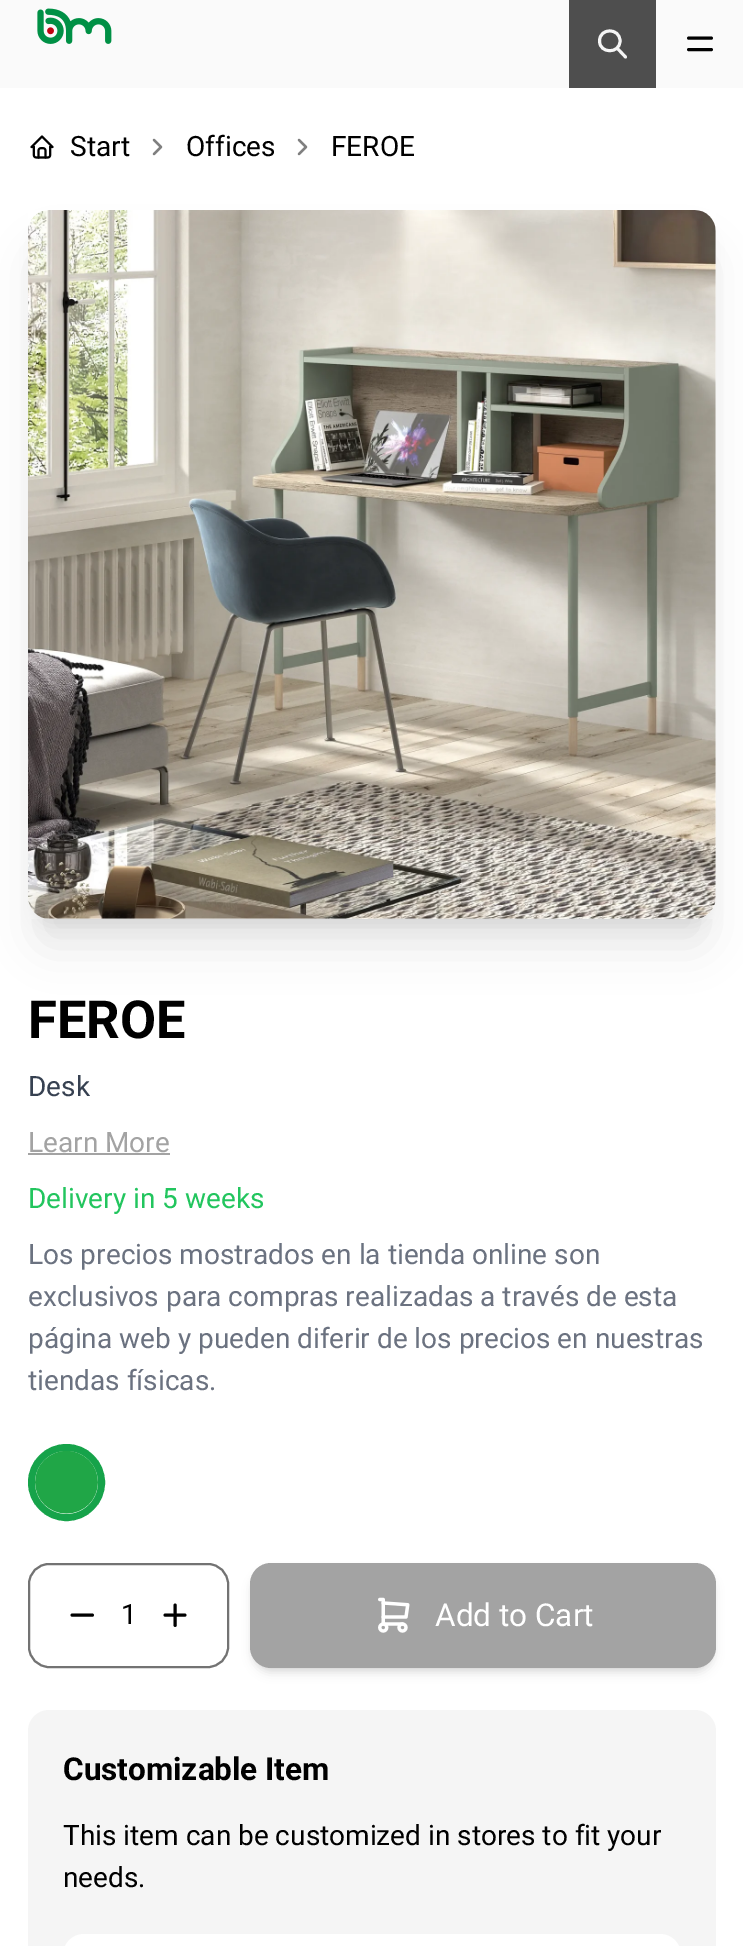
%!PS-Adobe-3.0
%%BoundingBox: 0 0 743 1946
%%LanguageLevel: 3
%%Pages: 1
%%EndComments
%%BeginProlog
/setink { dup -16 bitshift 255 div exch dup -8 bitshift 255 and 255 div exch 255 and 255 div setrgbcolor } def
/usefont { [ exch dup neg 0 0 3 -1 roll 0 0 ] selectfont } def
/setalpha { dup .setfillconstantalpha .setstrokeconstantalpha } def
/disc { newpath 0 360 arc closepath } def
/rrect { 5 dict begin { /r /h /w /y /x } { exch def } forall
  x r add y moveto x w add y 2 copy h add r arct x w add y h add x 1 index r arct
  x y h add x y r arct x y 2 copy exch w add exch r arct closepath end } def
/softshadow { 12 dict begin { /a /b /q /h /w /y /x } { exch def } forall gsave /was 0 def
  9 -2 -9 { dup b mul 4 div /e exch def 1 sub .425 mul 2.718 exch exp 1 add a .99 .min exch div /now exch def
    1 1 now sub 1 was sub div sub setalpha /was now def
    w h .min e 2 mul add 0 gt { x e sub y e sub w e 2 mul add h e 2 mul add
      q e add b .6 mul add w h .min 2 div e add .min 0 .max rrect fill } if } for grestore end } def
/drawimage { 5 dict begin { /h /w /y /x /name } { exch def } forall
  gsave x y translate w h scale
  w h 8 [w 0 0 h 0 0] name (r) file false 3 colorimage grestore end } def
%%EndProlog
%%BeginSetup
<< /PageSize [743 1946] /PageUsesTransparency true >> setpagedevice
%%EndSetup
%%Page: 1 1
0 .pushpdf14devicefilter
0 1946 translate 1 -1 scale
4 setmiterlimit
16#FFFFFF setink
0 0 743 1946 rectfill
16#FAFAFA setink
0 0 743 88 rectfill
(img1.raw) 37 8 75 36 drawimage
16#4E4E4E setink
569 0 87 88 rectfill
16#F5F5F5 setink
2.9 setlinewidth
1 setlinecap
1 setlinejoin
599.5 41 moveto 599.5 54 620 54 620 41 curveto 620 27.5 599.5 27.5 599.5 41 curveto 625.5 57 moveto 617 48 lineto stroke
16#000000 setink
688.5 38 moveto 711.5 38 lineto 688.5 49.5 moveto 711.5 49.5 lineto stroke
(img2.raw) 30 135 24 24 drawimage
/Roboto-Regular 28 usefont
70 156 moveto (Start) show
16#808080 setink
2.3 setlinewidth
154 140 moveto 161 147 lineto 154 154 lineto stroke
16#000000 setink
186 156 moveto (Offices) show
16#808080 setink
299 140 moveto 306 147 lineto 299 154 lineto stroke
16#000000 setink
331 156 moveto (FEROE) show
39 235 666 687 11 9 0.1 softshadow
37 254 670 691 12 22 0.1 softshadow
(img3.raw) 28 210 688 709 drawimage
/Roboto-Bold 52.5 usefont
28 1038 moveto (FEROE) show
/Roboto-Regular 28 usefont
16#374151 setink
28 1096 moveto (Desk) show
16#A3A3A3 setink
28 1152 moveto (Learn More) show
28 1153 142 2 rectfill
16#22C55E setink
28 1208 moveto (Delivery in 5 weeks) show
16#6B7280 setink
[
    [(Los precios mostrados en la tienda online son) 28 1264]
    [(exclusivos para compras realizadas a través de esta) 28 1306]
    [(página web y pueden diferir de los precios en nuestras) 28 1348]
    [(tiendas físicas.) 28 1390]
] { aload pop moveto show } forall
16#16A34A setink
7 setlinewidth
0 setlinecap
0 setlinejoin
66.5 1482.5 35 disc stroke
(img4.raw) 35 1451 63 63 drawimage
16#737373 setink
2 setlinewidth
29 1564 199 103 20 rrect stroke
16#000000 setink
2.9 setlinewidth
1 setlinecap
1 setlinejoin
72 1615 moveto 92.5 1615 lineto stroke
121 1624 moveto (1) show
175 1605 moveto 175 1625.5 lineto 165 1615 moveto 185 1615 lineto stroke
254 1570 458 98 18 3.5 0.1 softshadow
252 1572 462 101 19 5 0.1 softshadow
16#A3A3A3 setink
250 1563 466 105 21 rrect fill
(img5.raw) 378 1597 32 36 drawimage
/Roboto-Regular 31.5 usefont
16#FFFFFF setink
435 1626 moveto (Add to Cart) show
16#F5F5F5 setink
28 1710 688 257 21 rrect fill
/Roboto-Bold 31.5 usefont
16#000000 setink
63 1780 moveto (Customizable Item) show
/Roboto-Regular 28 usefont
63 1845 moveto (This item can be customized in stores to fit your) show
63 1887 moveto (needs.) show
16#FFFFFF setink
63 1934 618 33 21 rrect fill
.poppdf14devicefilter showpage
%%EOF
